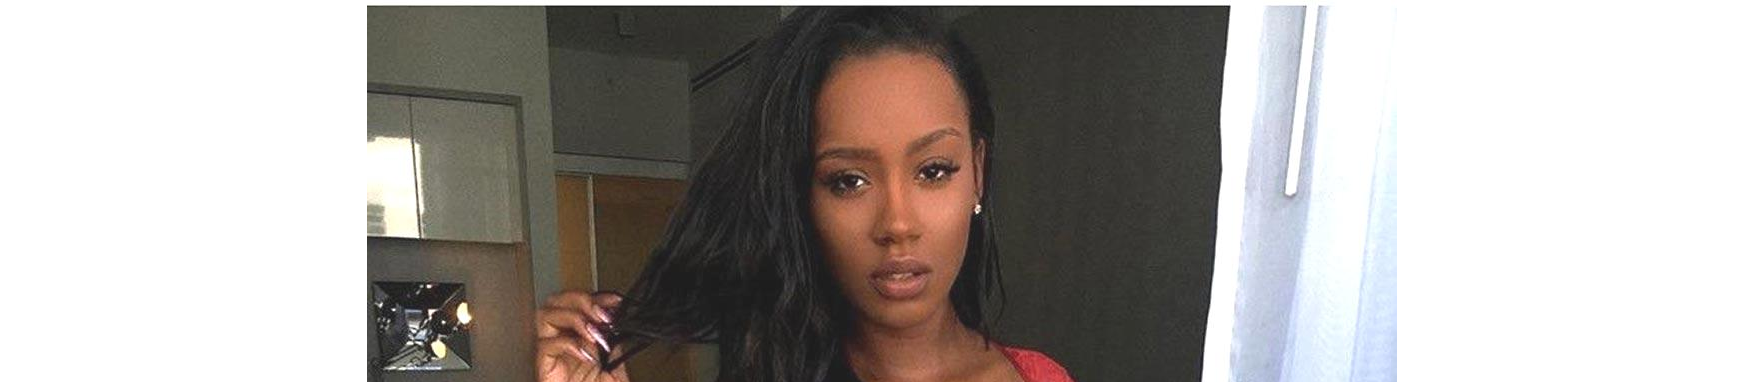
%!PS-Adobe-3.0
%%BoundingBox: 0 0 1763 382
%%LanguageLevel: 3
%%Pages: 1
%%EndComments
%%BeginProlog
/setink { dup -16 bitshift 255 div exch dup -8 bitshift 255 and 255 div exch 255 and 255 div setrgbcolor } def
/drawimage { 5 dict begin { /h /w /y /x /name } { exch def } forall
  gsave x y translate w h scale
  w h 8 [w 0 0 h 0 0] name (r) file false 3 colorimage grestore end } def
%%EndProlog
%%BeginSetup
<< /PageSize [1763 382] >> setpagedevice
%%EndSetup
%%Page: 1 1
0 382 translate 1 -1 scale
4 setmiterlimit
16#FFFFFF setink
0 0 1763 382 rectfill
(img1.raw) 367 0 1030 382 drawimage
showpage
%%EOF
